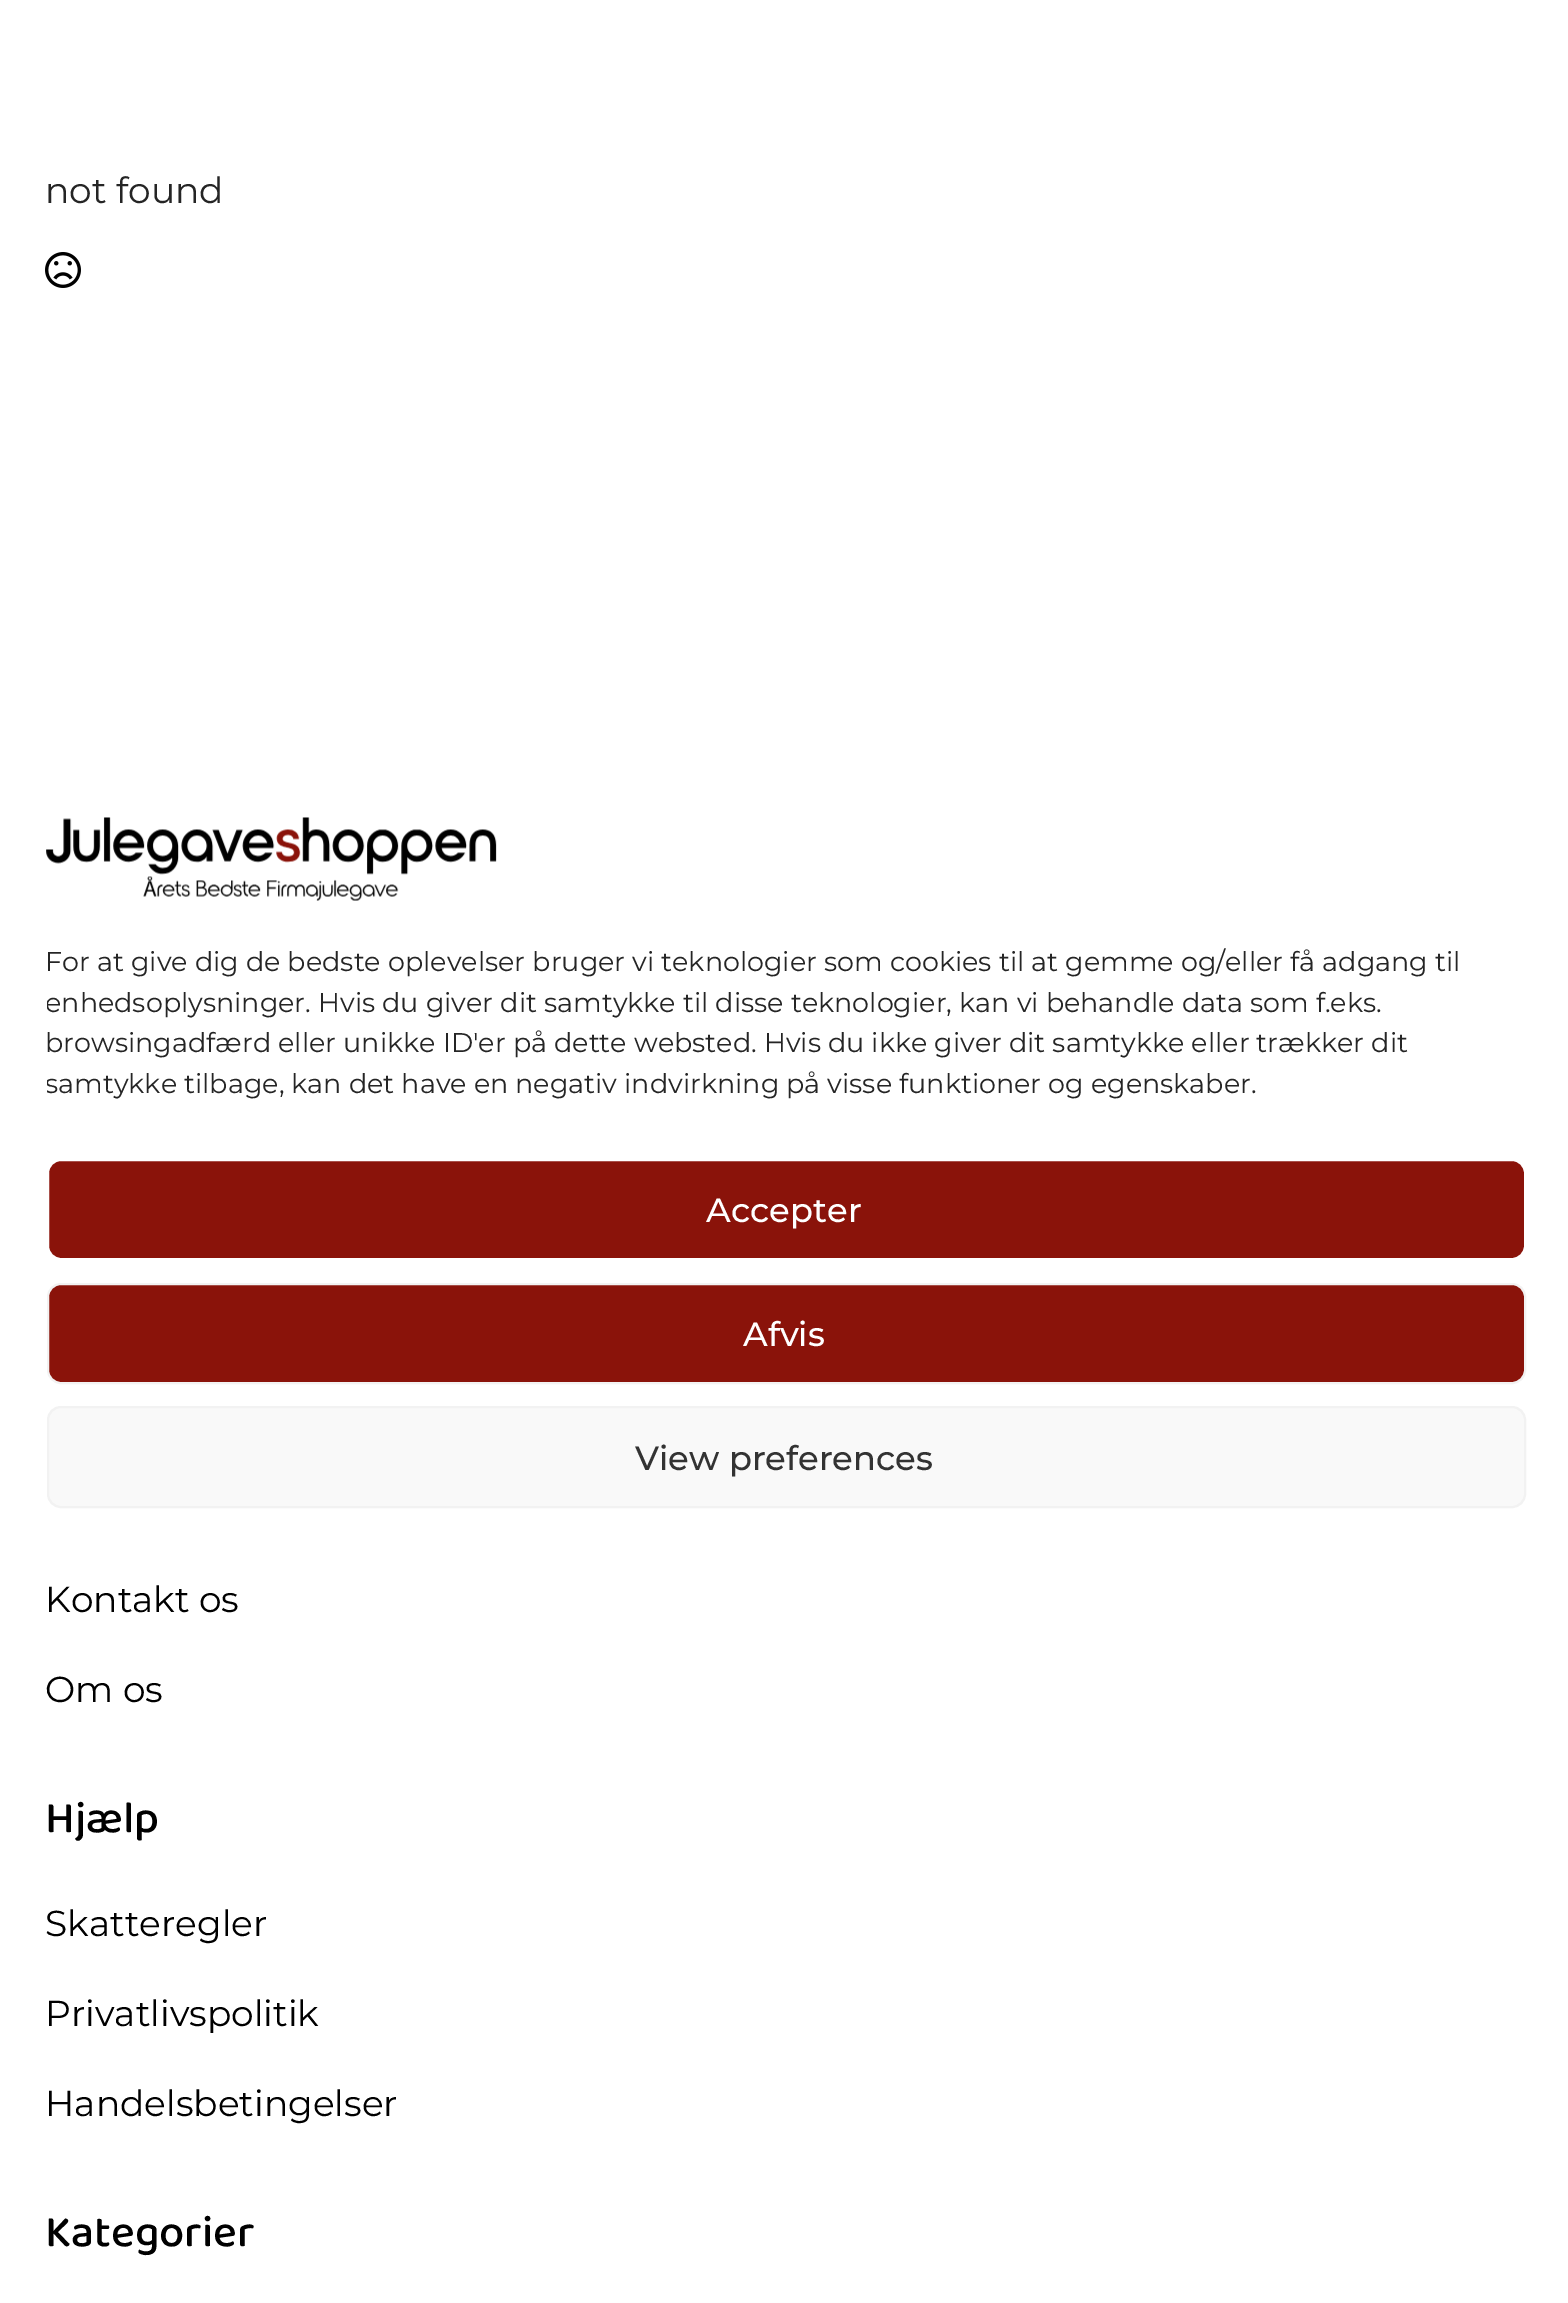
%!PS-Adobe-3.0
%%BoundingBox: 0 0 1568 2303
%%LanguageLevel: 3
%%Pages: 1
%%EndComments
%%BeginProlog
/setink { dup -16 bitshift 255 div exch dup -8 bitshift 255 and 255 div exch 255 and 255 div setrgbcolor } def
/usefont { [ exch dup neg 0 0 3 -1 roll 0 0 ] selectfont } def
/rrect { 5 dict begin { /r /h /w /y /x } { exch def } forall
  x r add y moveto x w add y 2 copy h add r arct x w add y h add x 1 index r arct
  x y h add x y r arct x y 2 copy exch w add exch r arct closepath end } def
/drawimage { 5 dict begin { /h /w /y /x /name } { exch def } forall
  gsave x y translate w h scale
  w h 8 [w 0 0 h 0 0] name (r) file false 3 colorimage grestore end } def
%%EndProlog
%%BeginSetup
<< /PageSize [1568 2303] >> setpagedevice
%%EndSetup
%%Page: 1 1
0 2303 translate 1 -1 scale
4 setmiterlimit
16#FFFFFF setink
0 0 1568 2303 rectfill
/Montserrat-Regular 36 usefont
16#252525 setink
45 203 moveto (not found) show
(img1.raw) 45 252 36 36 drawimage
(img2.raw) 46 817 451 84 drawimage
/Montserrat-Regular 27 usefont
45 971 moveto (For at give dig de bedste oplevelser bruger vi teknologier som cookies til at gemme og/eller få adgang til) show
gsave
47 817 1479 297 rectclip
45 1012 moveto (enhedsoplysninger. Hvis du giver dit samtykke til disse teknologier, kan vi behandle data som f.eks.) show
grestore
45 1052 moveto (browsingadfærd eller unikke ID'er på dette websted. Hvis du ikke giver dit samtykke eller trækker dit) show
gsave
47 817 1479 297 rectclip
45 1093 moveto (samtykke tilbage, kan det have en negativ indvirkning på visse funktioner og egenskaber.) show
grestore
16#8A130A setink
48 1160 1477 99 13 rrect gsave fill grestore
16#FFFFFF setink
2 setlinewidth
stroke
/Montserrat-Medium 33.75 usefont
706 1222 moveto (Accepter) show
16#8A130A setink
48 1284 1477 99 13 rrect gsave fill grestore
16#F2F2F2 setink
stroke
16#FFFFFF setink
743 1346 moveto (Afvis) show
16#F9F9F9 setink
48 1407 1477 100 13 rrect gsave fill grestore
16#F2F2F2 setink
stroke
16#333333 setink
635 1470 moveto (View preferences) show
/Montserrat-Regular 36 usefont
16#000000 setink
45 1612 moveto (Kontakt os) show
45 1702 moveto (Om os) show
/BalooChettan2-Medium 45 usefont
45 1832 moveto (Hjælp) show
/Montserrat-Regular 36 usefont
[
    [(Skatteregler) 45 1936]
    [(Privatlivspolitik) 45 2026]
    [(Handelsbetingelser) 45 2116]
] { aload pop moveto show } forall
/BalooChettan2-Medium 45 usefont
45 2246 moveto (Kategorier) show
showpage
%%EOF
